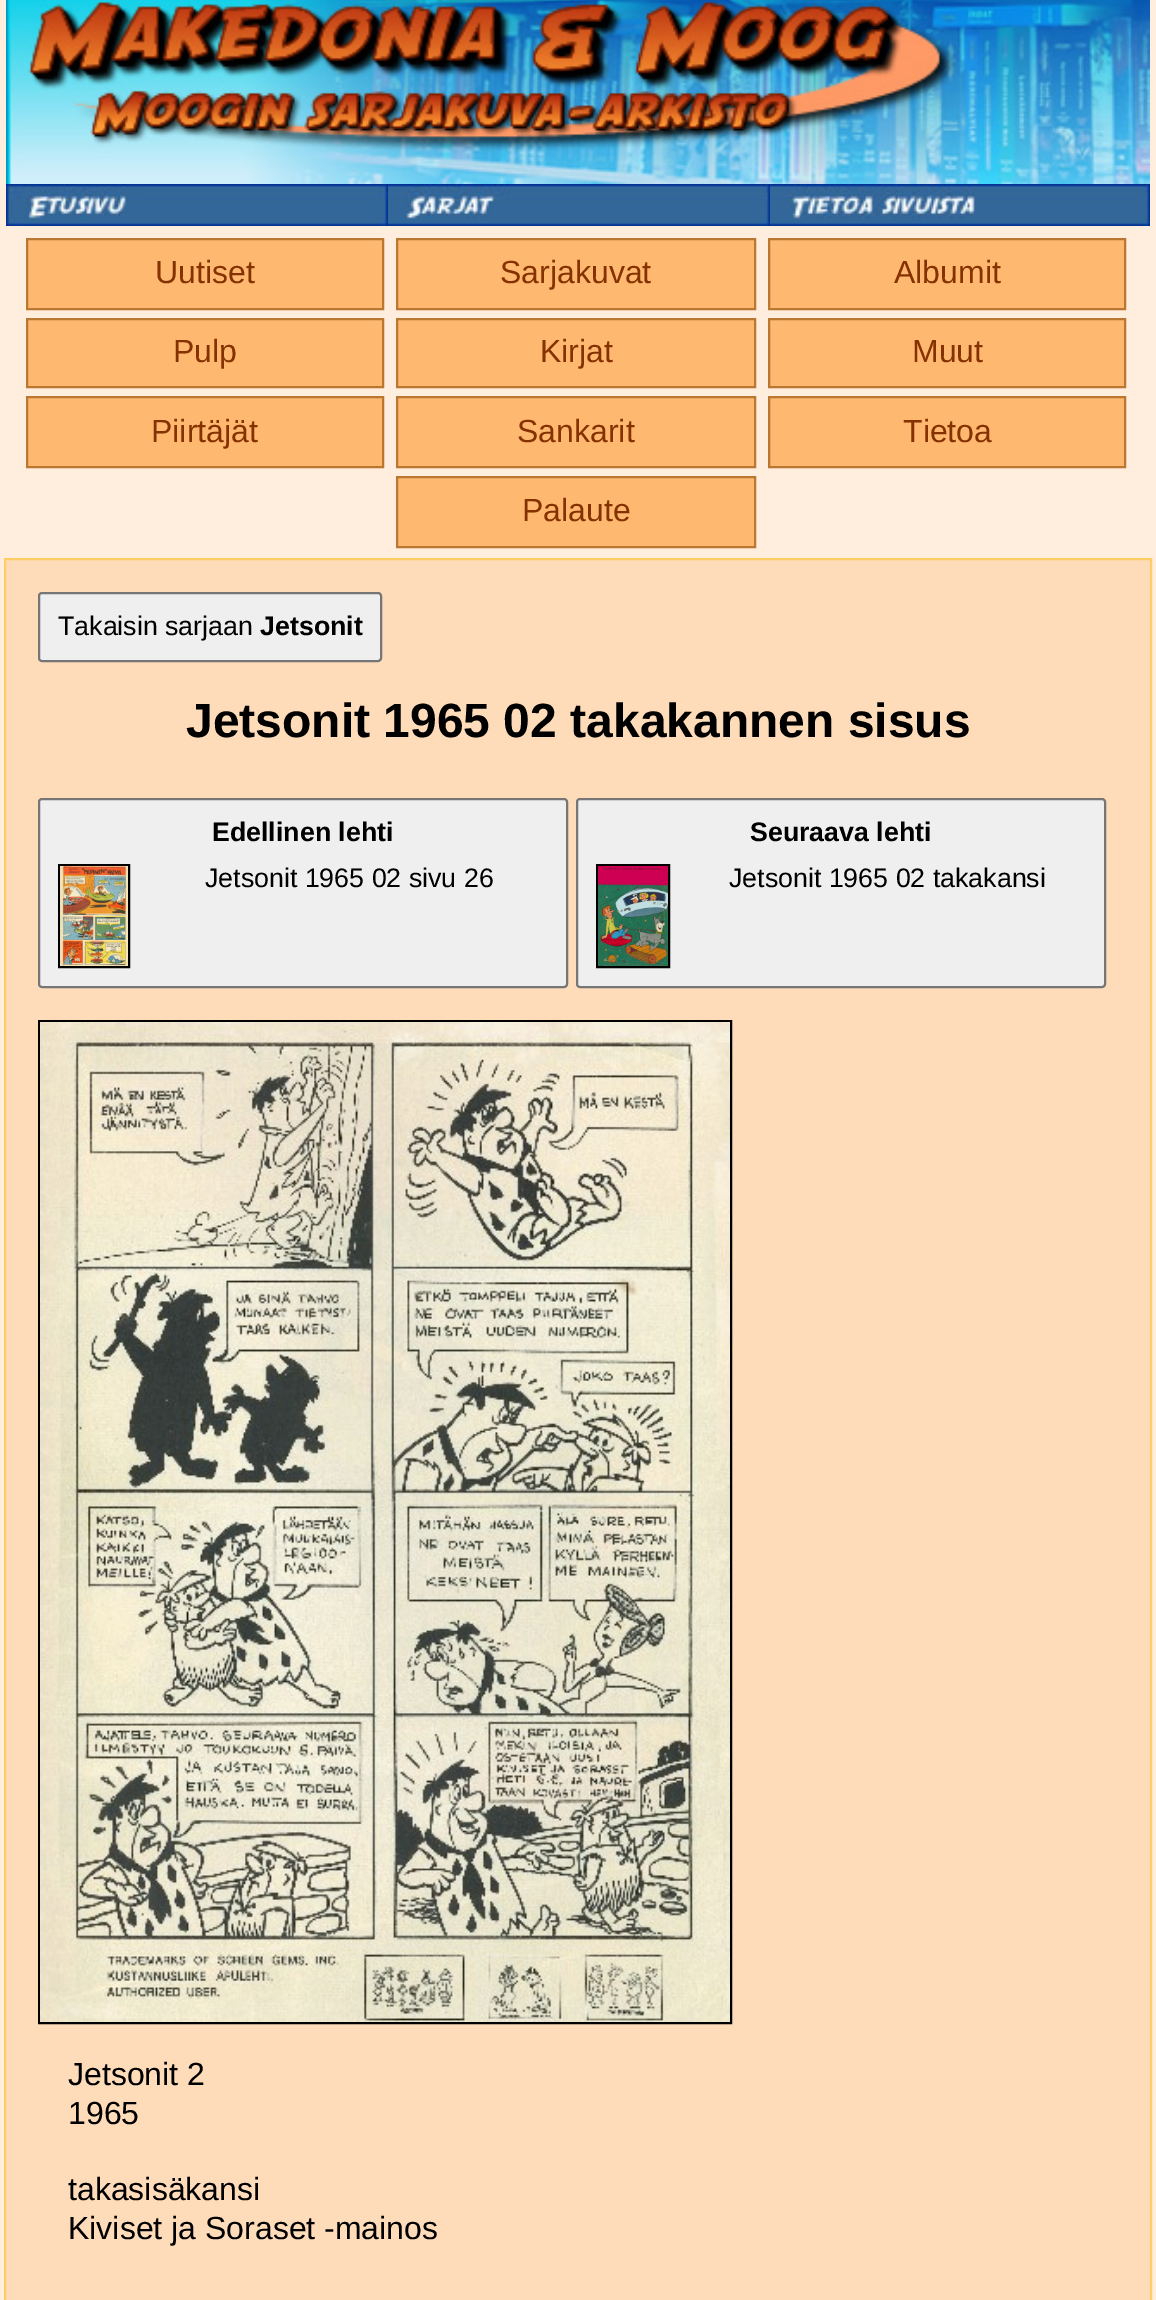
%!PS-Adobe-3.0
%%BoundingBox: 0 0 1156 2300
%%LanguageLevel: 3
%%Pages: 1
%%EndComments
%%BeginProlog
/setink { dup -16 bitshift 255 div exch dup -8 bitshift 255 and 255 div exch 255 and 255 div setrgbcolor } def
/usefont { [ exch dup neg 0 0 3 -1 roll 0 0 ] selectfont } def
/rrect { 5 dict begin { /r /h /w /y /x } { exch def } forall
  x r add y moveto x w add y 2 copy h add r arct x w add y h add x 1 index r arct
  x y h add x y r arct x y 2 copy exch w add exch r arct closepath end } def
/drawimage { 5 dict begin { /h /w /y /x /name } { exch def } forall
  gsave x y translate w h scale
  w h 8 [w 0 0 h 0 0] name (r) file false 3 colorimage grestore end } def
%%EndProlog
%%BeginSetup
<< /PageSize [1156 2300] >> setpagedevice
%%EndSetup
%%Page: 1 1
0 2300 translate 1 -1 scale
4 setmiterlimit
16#FFEEDD setink
0 0 1156 2300 rectfill
(img1.raw) 6 0 1144 184 drawimage
(img2.raw) 6 184 382 42 drawimage
(img3.raw) 388 184 382 42 drawimage
(img4.raw) 770 184 380 42 drawimage
16#FEB870 setink
27 239 moveto 383 239 lineto 383 309 lineto 27 309 lineto closepath gsave fill grestore
16#B97731 setink
2 setlinewidth
stroke
/LiberationSans-Regular 32 usefont
16#863200 setink
155 283 moveto (Uutiset) show
16#FEB870 setink
397 239 moveto 755 239 lineto 755 309 lineto 397 309 lineto closepath gsave fill grestore
16#B97731 setink
stroke
16#863200 setink
500 283 moveto (Sarjakuvat) show
16#FEB870 setink
769 239 moveto 1125 239 lineto 1125 309 lineto 769 309 lineto closepath gsave fill grestore
16#B97731 setink
stroke
16#863200 setink
894 283 moveto (Albumit) show
16#FEB870 setink
27 319 moveto 383 319 lineto 383 387 lineto 27 387 lineto closepath gsave fill grestore
16#B97731 setink
stroke
16#863200 setink
173 362 moveto (Pulp) show
16#FEB870 setink
397 319 moveto 755 319 lineto 755 387 lineto 397 387 lineto closepath gsave fill grestore
16#B97731 setink
stroke
16#863200 setink
540 362 moveto (Kirjat) show
16#FEB870 setink
769 319 moveto 1125 319 lineto 1125 387 lineto 769 387 lineto closepath gsave fill grestore
16#B97731 setink
stroke
16#863200 setink
912 362 moveto (Muut) show
16#FEB870 setink
27 397 moveto 383 397 lineto 383 467 lineto 27 467 lineto closepath gsave fill grestore
16#B97731 setink
stroke
16#863200 setink
151 442 moveto (Piirtäjät) show
16#FEB870 setink
397 397 moveto 755 397 lineto 755 467 lineto 397 467 lineto closepath gsave fill grestore
16#B97731 setink
stroke
16#863200 setink
517 442 moveto (Sankarit) show
16#FEB870 setink
769 397 moveto 1125 397 lineto 1125 467 lineto 769 467 lineto closepath gsave fill grestore
16#B97731 setink
stroke
16#863200 setink
903 442 moveto (Tietoa) show
16#FEB870 setink
397 477 moveto 755 477 lineto 755 547 lineto 397 547 lineto closepath gsave fill grestore
16#B97731 setink
stroke
16#863200 setink
522 521 moveto (Palaute) show
16#FFDCB9 setink
5 559 moveto 1151 559 lineto 1151 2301 lineto 5 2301 lineto closepath gsave fill grestore
16#FFCC66 setink
stroke
16#EFEFEF setink
39 593 342 68 3 rrect gsave fill grestore
16#767676 setink
stroke
/LiberationSans-Regular 26.75 usefont
16#000000 setink
58 635 moveto (Takaisin sarjaan) show
/LiberationSans-Bold 26.75 usefont
260 635 moveto (Jetsonit) show
/LiberationSans-Bold 48 usefont
186 737 moveto (Jetsonit 1965 02 takakannen sisus) show
16#EFEFEF setink
39 799 528 188 3 rrect gsave fill grestore
16#767676 setink
stroke
/LiberationSans-Bold 26.75 usefont
16#000000 setink
212 841 moveto (Edellinen lehti) show
59 865 70 102 rectstroke
(img5.raw) 60 866 68 100 drawimage
/LiberationSans-Regular 26.75 usefont
205 887 moveto (Jetsonit 1965 02 sivu 26) show
16#EFEFEF setink
577 799 528 188 3 rrect gsave fill grestore
16#767676 setink
stroke
/LiberationSans-Bold 26.75 usefont
16#000000 setink
750 841 moveto (Seuraava lehti) show
597 865 72 102 rectstroke
(img6.raw) 598 866 70 100 drawimage
/LiberationSans-Regular 26.75 usefont
729 887 moveto (Jetsonit 1965 02 takakansi) show
39 1021 692 1002 rectstroke
(img7.raw) 40 1022 690 1000 drawimage
/LiberationSans-Regular 32 usefont
[
    [(Jetsonit 2) 68 2085]
    [(1965) 68 2124]
    [(takasisäkansi) 68 2200]
    [(Kiviset ja Soraset -mainos) 68 2239]
] { aload pop moveto show } forall
showpage
%%EOF
